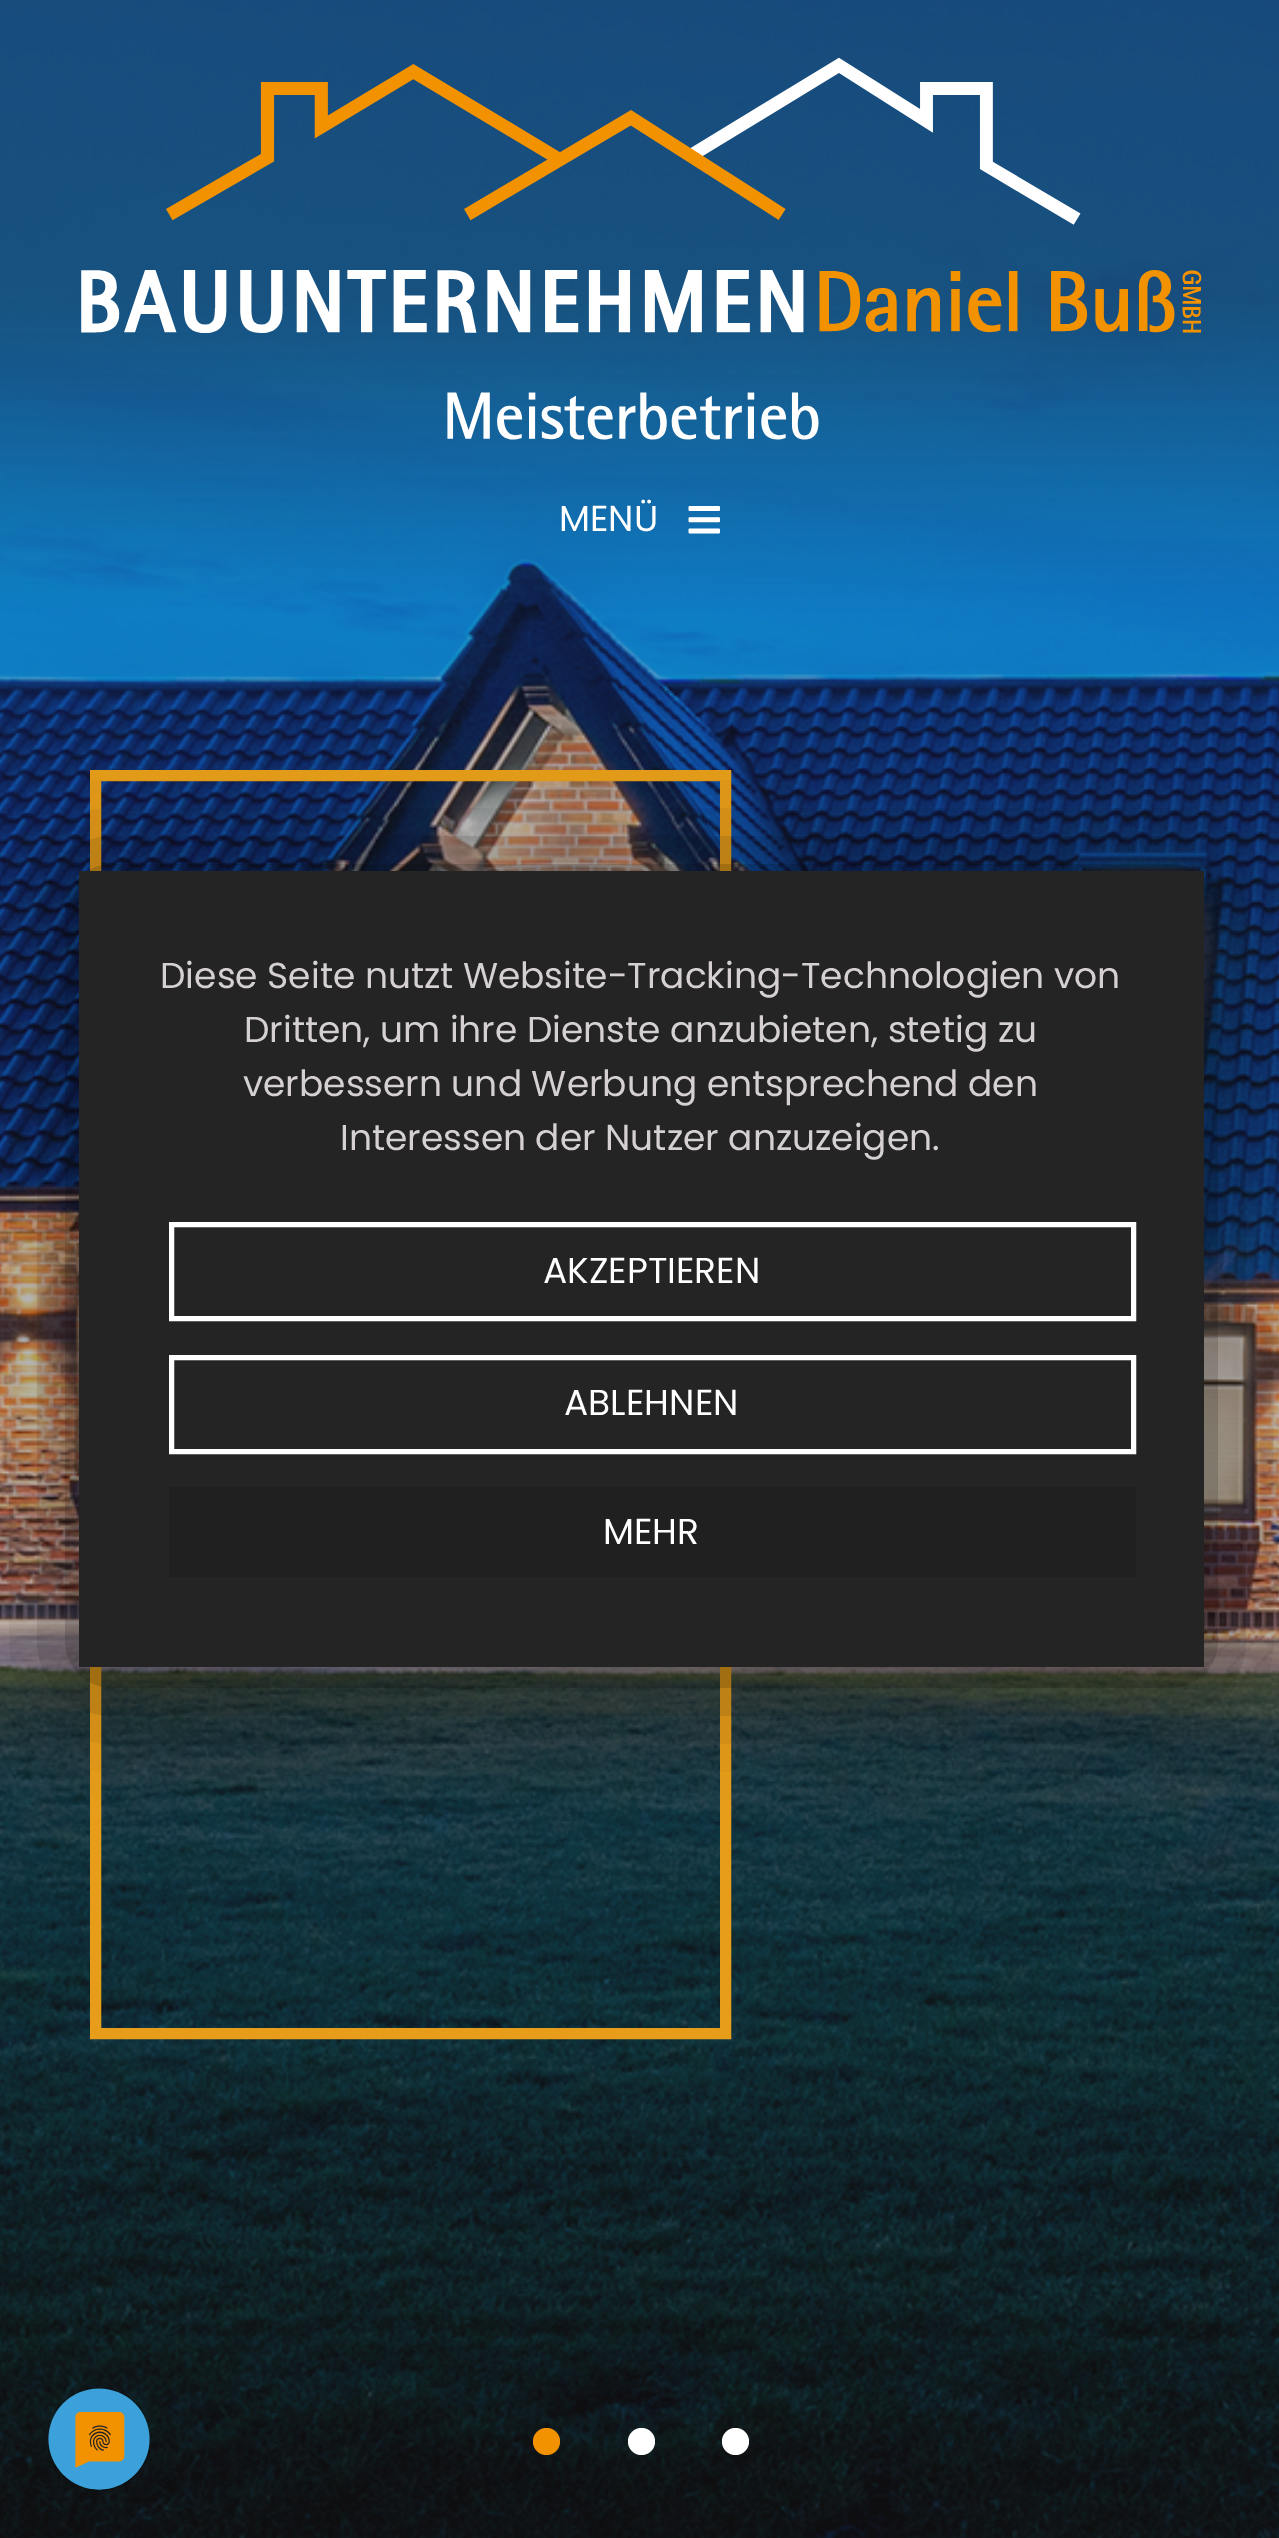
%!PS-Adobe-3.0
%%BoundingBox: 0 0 1279 2538
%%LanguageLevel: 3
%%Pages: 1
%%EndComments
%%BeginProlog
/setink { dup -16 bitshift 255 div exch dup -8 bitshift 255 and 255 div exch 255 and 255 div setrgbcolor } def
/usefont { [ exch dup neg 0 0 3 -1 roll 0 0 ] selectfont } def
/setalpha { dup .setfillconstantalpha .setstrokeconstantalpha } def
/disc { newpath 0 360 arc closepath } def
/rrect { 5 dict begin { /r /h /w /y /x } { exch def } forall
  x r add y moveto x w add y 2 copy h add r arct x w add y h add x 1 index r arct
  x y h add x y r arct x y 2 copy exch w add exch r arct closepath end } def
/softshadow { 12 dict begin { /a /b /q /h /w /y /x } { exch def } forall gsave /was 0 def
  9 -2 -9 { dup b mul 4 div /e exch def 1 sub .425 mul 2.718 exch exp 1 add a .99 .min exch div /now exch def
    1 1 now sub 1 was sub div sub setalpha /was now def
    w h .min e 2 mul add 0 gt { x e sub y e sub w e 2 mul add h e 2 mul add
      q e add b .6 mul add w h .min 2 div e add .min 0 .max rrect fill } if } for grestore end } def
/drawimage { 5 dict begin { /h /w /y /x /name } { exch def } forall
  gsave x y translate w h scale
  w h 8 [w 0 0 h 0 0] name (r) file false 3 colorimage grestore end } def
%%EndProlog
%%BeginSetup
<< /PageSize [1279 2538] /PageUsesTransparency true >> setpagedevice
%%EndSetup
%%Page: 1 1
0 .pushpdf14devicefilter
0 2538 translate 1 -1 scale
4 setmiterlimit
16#FFFFFF setink
0 0 1279 2538 rectfill
(img1.raw) 0 0 1279 2538 drawimage
16#E79D19 setink
11 setlinewidth
95.5 775.5 630 1258 rectstroke
16#F39200 setink
546.5 2441.5 13.5 disc fill
16#FFFFFF setink
641.5 2441.5 13.5 disc fill
735.5 2441.5 13.5 disc fill
(img2.raw) 81 57 1121 383 drawimage
/Poppins-Regular 36 usefont
559 531 moveto (MENÜ) show
(img3.raw) 688 506 32 28 drawimage
16#000000 setink
79 878 1125 796 0 56 0.6 softshadow
16#242424 setink
79 871 1125 796 rectfill
16#D5D0D2 setink
[
    [(Diese Seite nutzt Website-Tracking-Technologien von) 160 988]
    [(Dritten, um ihre Dienste anzubieten, stetig zu) 244 1042]
    [(verbessern und Werbung entsprechend den) 243 1096]
    [(Interessen der Nutzer anzuzeigen.) 340 1150]
] { aload pop moveto show } forall
16#FFFFFF setink
5 setlinewidth
171.5 1224.5 962 94 rectstroke
543 1283 moveto (AKZEPTIEREN) show
171.5 1357.5 962 94 rectstroke
564 1415 moveto (ABLEHNEN) show
16#202020 setink
169 1487 967 90 rectfill
16#FFFFFF setink
603 1544 moveto (MEHR) show
(img4.raw) 48 2388 102 103 drawimage
.poppdf14devicefilter showpage
%%EOF
